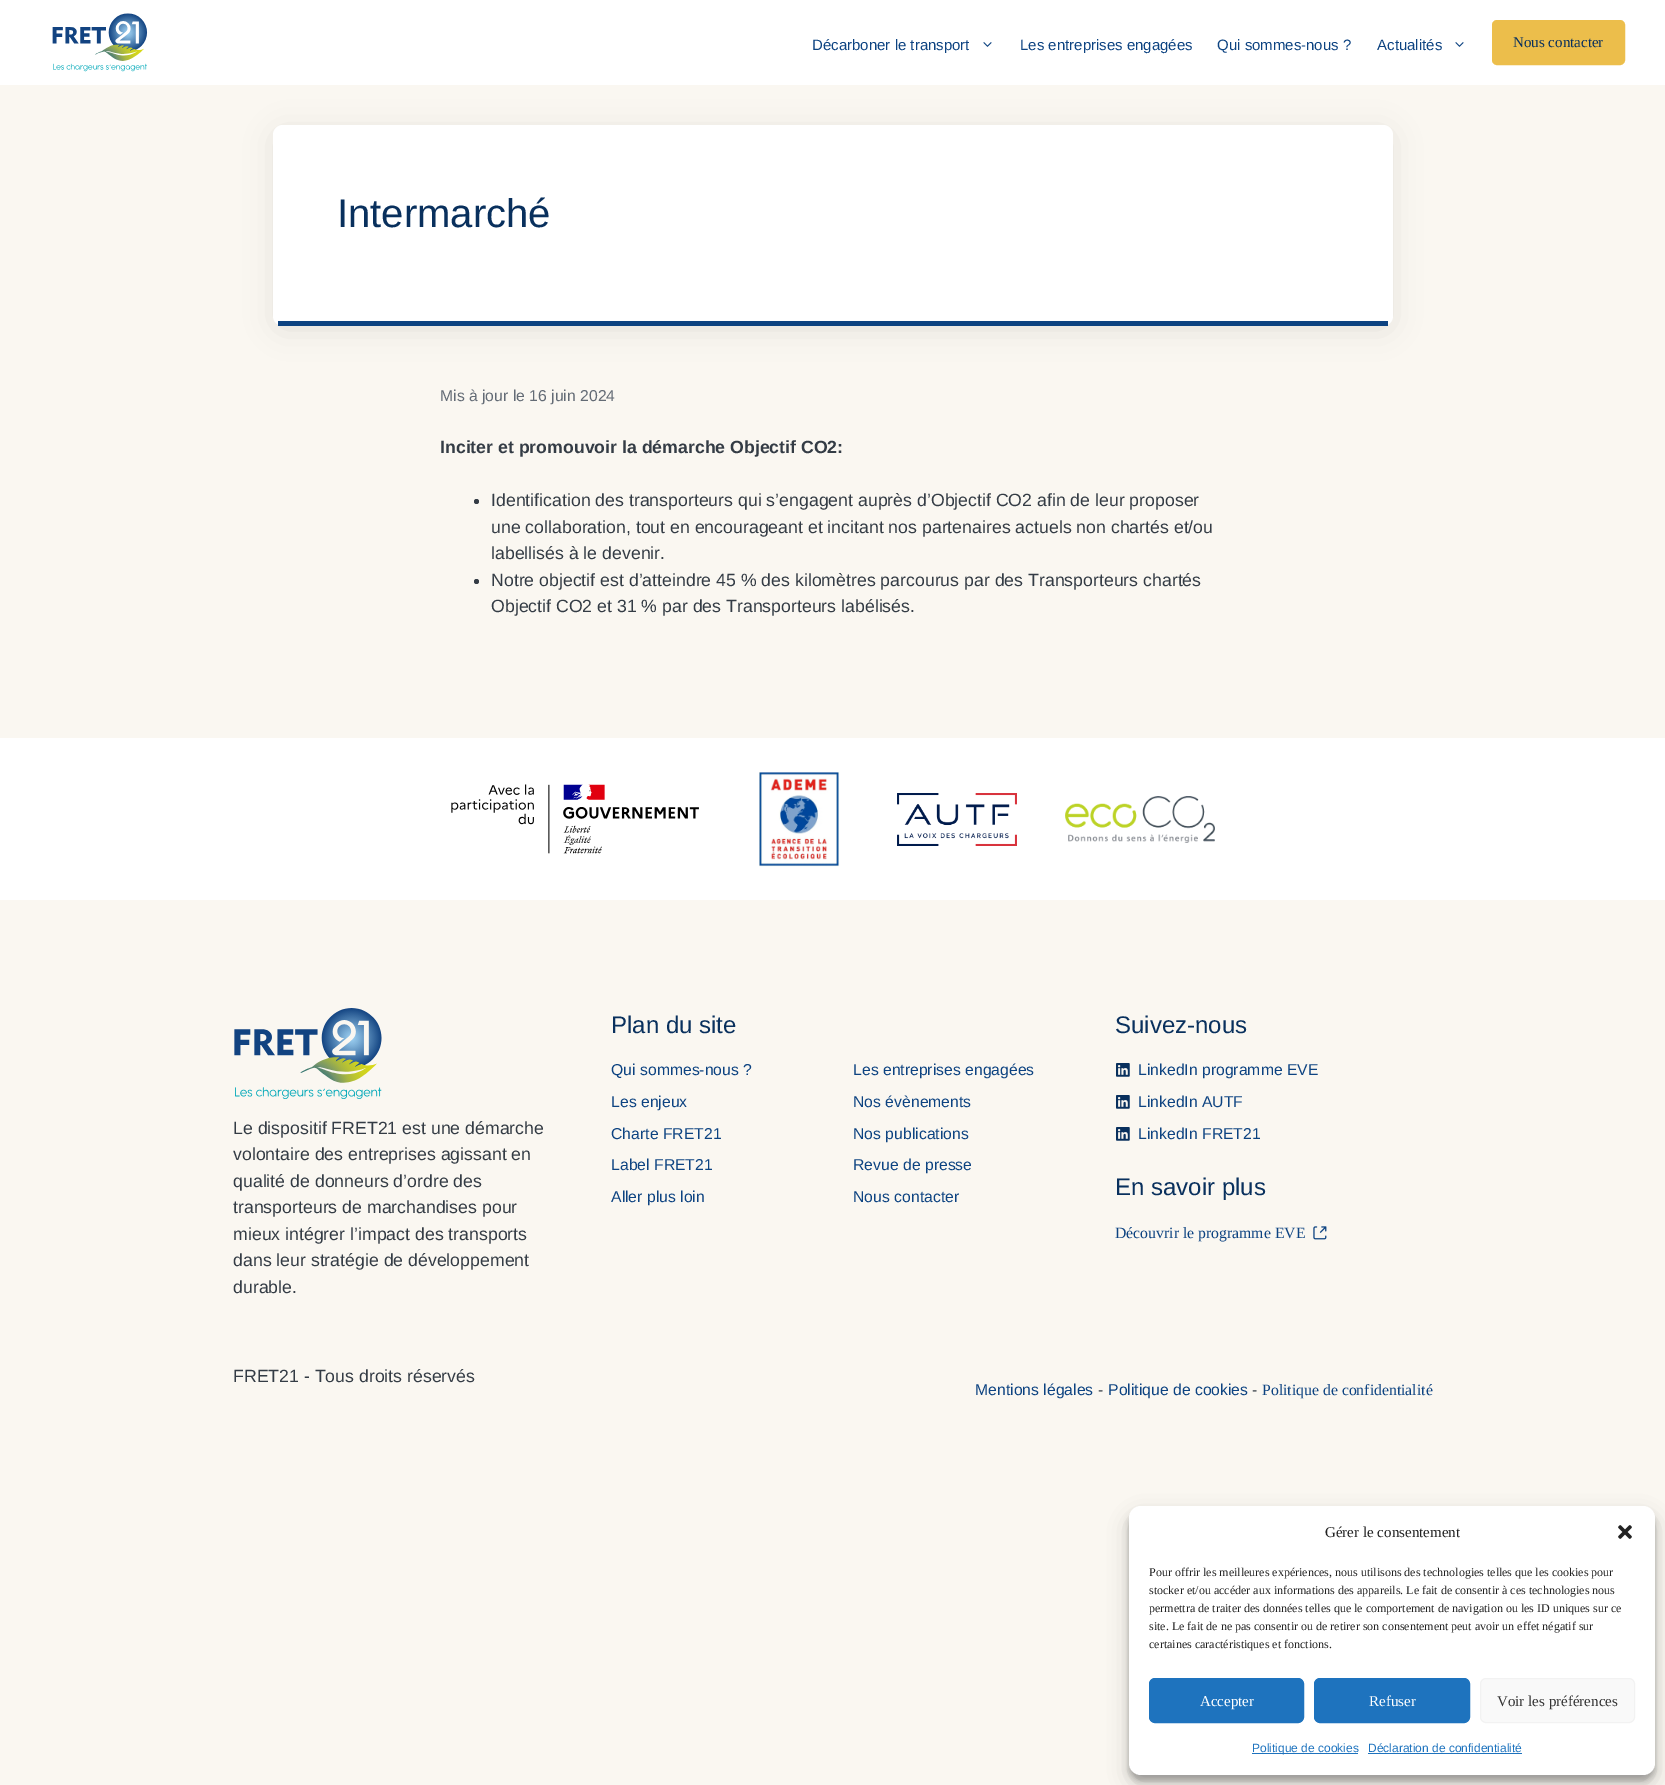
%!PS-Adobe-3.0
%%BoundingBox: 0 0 1665 1785
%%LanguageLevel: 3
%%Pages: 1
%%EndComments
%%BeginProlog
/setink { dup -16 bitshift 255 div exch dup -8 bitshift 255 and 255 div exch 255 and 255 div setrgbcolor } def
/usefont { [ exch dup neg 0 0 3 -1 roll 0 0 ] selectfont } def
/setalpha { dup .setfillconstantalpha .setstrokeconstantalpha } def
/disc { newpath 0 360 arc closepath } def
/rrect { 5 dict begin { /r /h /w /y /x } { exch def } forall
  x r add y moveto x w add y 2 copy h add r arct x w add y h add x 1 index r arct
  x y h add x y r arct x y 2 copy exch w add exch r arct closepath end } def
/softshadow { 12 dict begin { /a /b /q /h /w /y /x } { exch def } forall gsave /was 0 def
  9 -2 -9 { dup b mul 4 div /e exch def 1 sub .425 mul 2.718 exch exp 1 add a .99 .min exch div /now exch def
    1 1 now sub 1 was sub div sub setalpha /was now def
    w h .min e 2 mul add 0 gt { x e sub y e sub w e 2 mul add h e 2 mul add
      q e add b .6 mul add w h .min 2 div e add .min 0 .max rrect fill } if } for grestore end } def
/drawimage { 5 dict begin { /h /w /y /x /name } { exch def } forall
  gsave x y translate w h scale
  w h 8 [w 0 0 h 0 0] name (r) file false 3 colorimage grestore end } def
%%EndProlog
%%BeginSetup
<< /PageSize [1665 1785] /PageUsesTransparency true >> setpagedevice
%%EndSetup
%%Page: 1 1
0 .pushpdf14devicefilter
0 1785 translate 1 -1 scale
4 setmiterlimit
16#FAF7F1 setink
0 0 1665 1785 rectfill
16#FFFFFF setink
0 0 1665 85 rectfill
(img1.raw) 52 13 96 59 drawimage
/LiberationSans-Regular 15 usefont
16#0D4381 setink
812 50 moveto (Décarboner le transport) show
(img2.raw) 983 42 9 5 drawimage
[
    [(Les entreprises engagées) 1020 50]
    [(Qui sommes-nous ?) 1217 50]
    [(Actualités) 1377 50]
] { aload pop moveto show } forall
(img2.raw) 1455 42 9 5 drawimage
16#ECBE4B setink
1493 21 131 43 4 rrect gsave fill grestore
2 setlinewidth
stroke
/LiberationSerif-Regular 15 usefont
16#09305D setink
1513 47 moveto (Nous contacter) show
16#000000 setink
276 133 1114 195 7 15 0.1 softshadow
16#FFFFFF setink
273 125 1120 201 10 rrect fill
16#0D4381 setink
278 321 1110 5 rectfill
/LiberationSans-Regular 40 usefont
16#09305D setink
337 227 moveto (Intermarché) show
/LiberationSans-Regular 15.75 usefont
16#636B75 setink
440 401 moveto (Mis à jour le 16 juin 2024) show
/LiberationSans-Bold 17.7 usefont
16#343C45 setink
440 453 moveto (Inciter et promouvoir la démarche Objectif CO2:) show
476.5 501.5 2.5 disc fill
/LiberationSans-Regular 17.7 usefont
[
    [(Identification des transporteurs qui s’engagent auprès d’Objectif CO2 afin de leur proposer) 491 506]
    [(une collaboration, tout en encourageant et incitant nos partenaires actuels non chartés et/ou) 491 533]
    [(labellisés à le devenir.) 491 559]
] { aload pop moveto show } forall
476.5 581.5 2.5 disc fill
491 586 moveto (Notre objectif est d’atteindre 45 % des kilomètres parcourus par des Transporteurs chartés) show
491 612 moveto (Objectif CO2 et 31 % par des Transporteurs labélisés.) show
16#FFFFFF setink
0 738 1665 162 rectfill
(img3.raw) 451 784 248 70 drawimage
(img4.raw) 759 772 81 95 drawimage
(img5.raw) 897 793 120 53 drawimage
(img6.raw) 1065 796 150 47 drawimage
(img7.raw) 234 1008 148 91 drawimage
16#343C45 setink
[
    [(Le dispositif FRET21 est une démarche) 233 1134]
    [(volontaire des entreprises agissant en) 233 1160]
    [(qualité de donneurs d’ordre des) 233 1187]
    [(transporteurs de marchandises pour) 233 1213]
    [(mieux intégrer l’impact des transports) 233 1240]
    [(dans leur stratégie de développement) 233 1266]
    [(durable.) 233 1293]
] { aload pop moveto show } forall
/LiberationSans-Regular 24 usefont
16#09305D setink
611 1033 moveto (Plan du site) show
/LiberationSans-Regular 15.75 usefont
16#0D4381 setink
[
    [(Qui sommes-nous ?) 611 1075]
    [(Les enjeux) 611 1107]
    [(Charte FRET21) 611 1139]
    [(Label FRET21) 611 1170]
    [(Aller plus loin) 611 1202]
    [(Les entreprises engagées) 853 1075]
    [(Nos évènements) 853 1107]
    [(Nos publications) 853 1139]
    [(Revue de presse) 853 1170]
    [(Nous contacter) 853 1202]
] { aload pop moveto show } forall
/LiberationSans-Regular 24 usefont
16#09305D setink
1115 1033 moveto (Suivez-nous) show
(img8.raw) 1116 1063 14 14 drawimage
/LiberationSans-Regular 15.75 usefont
16#0D4381 setink
1138 1075 moveto (LinkedIn programme EVE) show
(img8.raw) 1116 1095 14 14 drawimage
1138 1107 moveto (LinkedIn AUTF) show
(img8.raw) 1116 1127 14 14 drawimage
1138 1139 moveto (LinkedIn FRET21) show
/LiberationSans-Regular 24 usefont
16#09305D setink
1115 1195 moveto (En savoir plus) show
/LiberationSerif-Regular 15.75 usefont
16#0D4381 setink
1115 1238 moveto (Découvrir le programme EVE) show
(img9.raw) 1313 1226 14 14 drawimage
/LiberationSans-Regular 17.7 usefont
16#343C45 setink
233 1382 moveto (FRET21 - Tous droits réservés) show
/LiberationSans-Regular 15.75 usefont
16#0D4381 setink
975 1395 moveto (Mentions légales) show
16#343C45 setink
1098 1395 moveto (-) show
16#0D4381 setink
1108 1395 moveto (Politique de cookies) show
16#343C45 setink
1252 1395 moveto (-) show
/LiberationSerif-Regular 15.75 usefont
16#0D4381 setink
1262 1395 moveto (Politique de confidentialité) show
16#000000 setink
1129 1512 526 269 12 3 0.23 softshadow
1129 1516 526 269 12 10 0.19 softshadow
16#FFFFFF setink
1129 1506 526 269 12 rrect fill
/LiberationSerif-Regular 15 usefont
16#222222 setink
1325 1537 moveto (Gérer le consentement) show
(img10.raw) 1618 1525 14 14 drawimage
/LiberationSerif-Regular 12 usefont
[
    [(Pour offrir les meilleures expériences, nous utilisons des technologies telles que les cookies pour) 1149 1576]
    [(stocker et/ou accéder aux informations des appareils. Le fait de consentir à ces technologies nous) 1149 1594]
    [(permettra de traiter des données telles que le comportement de navigation ou les ID uniques sur ce) 1149 1612]
    [(site. Le fait de ne pas consentir ou de retirer son consentement peut avoir un effet négatif sur) 1149 1630]
    [(certaines caractéristiques et fonctions.) 1149 1648]
] { aload pop moveto show } forall
16#1E73BE setink
1149.5 1678.5 154 44 5.5 rrect gsave fill grestore
1 setlinewidth
stroke
/LiberationSerif-Regular 15 usefont
16#FFFFFF setink
1200 1706 moveto (Accepter) show
16#1E73BE setink
1314.5 1678.5 155 44 5.5 rrect gsave fill grestore
stroke
16#FFFFFF setink
1369 1706 moveto (Refuser) show
16#F9F9F9 setink
1480.5 1678.5 154 44 5.5 rrect gsave fill grestore
16#F2F2F2 setink
stroke
16#333333 setink
1497 1706 moveto (Voir les préférences) show
16#1E73BE setink
1252 1753 106 1 rectfill
/LiberationSans-Regular 12 usefont
1252 1752 moveto (Politique de cookies) show
1368 1752 moveto (Déclaration de confidentialité) show
1368 1753 154 1 rectfill
.poppdf14devicefilter showpage
%%EOF
